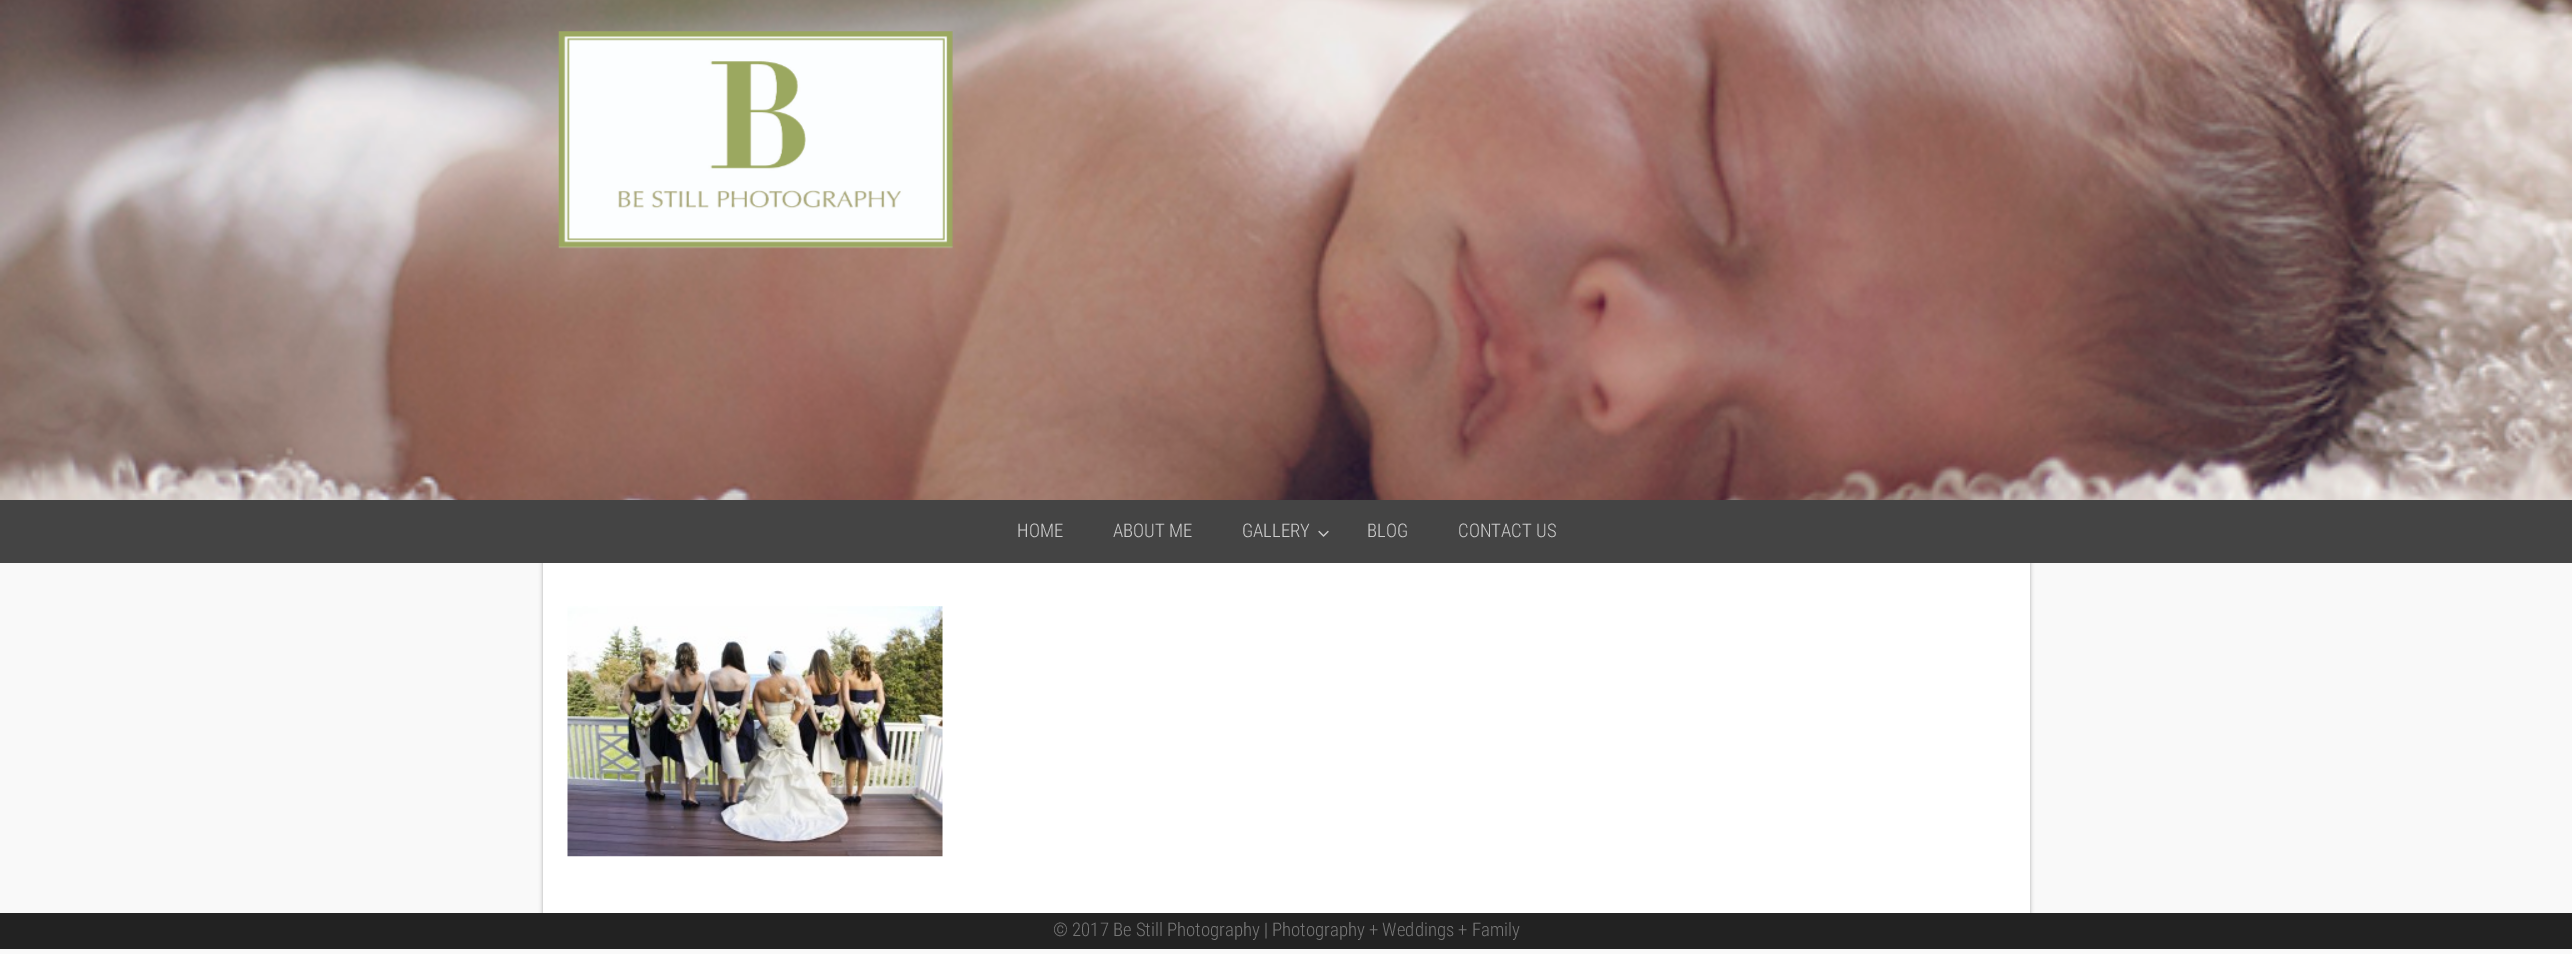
%!PS-Adobe-3.0
%%BoundingBox: 0 0 2572 954
%%LanguageLevel: 3
%%Pages: 1
%%EndComments
%%BeginProlog
/setink { dup -16 bitshift 255 div exch dup -8 bitshift 255 and 255 div exch 255 and 255 div setrgbcolor } def
/usefont { [ exch dup neg 0 0 3 -1 roll 0 0 ] selectfont } def
/setalpha { dup .setfillconstantalpha .setstrokeconstantalpha } def
/rrect { 5 dict begin { /r /h /w /y /x } { exch def } forall
  x r add y moveto x w add y 2 copy h add r arct x w add y h add x 1 index r arct
  x y h add x y r arct x y 2 copy exch w add exch r arct closepath end } def
/softshadow { 12 dict begin { /a /b /q /h /w /y /x } { exch def } forall gsave /was 0 def
  9 -2 -9 { dup b mul 4 div /e exch def 1 sub .425 mul 2.718 exch exp 1 add a .99 .min exch div /now exch def
    1 1 now sub 1 was sub div sub setalpha /was now def
    w h .min e 2 mul add 0 gt { x e sub y e sub w e 2 mul add h e 2 mul add
      q e add b .6 mul add w h .min 2 div e add .min 0 .max rrect fill } if } for grestore end } def
/drawimage { 5 dict begin { /h /w /y /x /name } { exch def } forall
  gsave x y translate w h scale
  w h 8 [w 0 0 h 0 0] name (r) file false 3 colorimage grestore end } def
%%EndProlog
%%BeginSetup
<< /PageSize [2572 954] /PageUsesTransparency true >> setpagedevice
%%EndSetup
%%Page: 1 1
0 .pushpdf14devicefilter
0 954 translate 1 -1 scale
4 setmiterlimit
16#F9F9F9 setink
0 0 2572 954 rectfill
(img1.raw) 0 0 2572 500 drawimage
(img2.raw) 558 31 395 218 drawimage
16#000000 setink
543 563 1487 350 0 2 0.32 softshadow
16#444444 setink
0 500 2572 63 rectfill
/RobotoCondensed-Light 18.75 usefont
16#CCCCCC setink
[
    [(HOME) 1017 537]
    [(ABOUT ME) 1113 537]
    [(GALLERY) 1242 537]
] { aload pop moveto show } forall
(img3.raw) 1318 530 11 7 drawimage
1367 537 moveto (BLOG) show
1458 537 moveto (CONTACT US) show
16#FFFFFF setink
543 563 1487 350 rectfill
(img4.raw) 567 606 376 251 drawimage
16#222222 setink
0 913 2572 36 rectfill
16#777777 setink
1053 936 moveto (© 2017 Be Still Photography | Photography + Weddings + Family) show
.poppdf14devicefilter showpage
%%EOF
